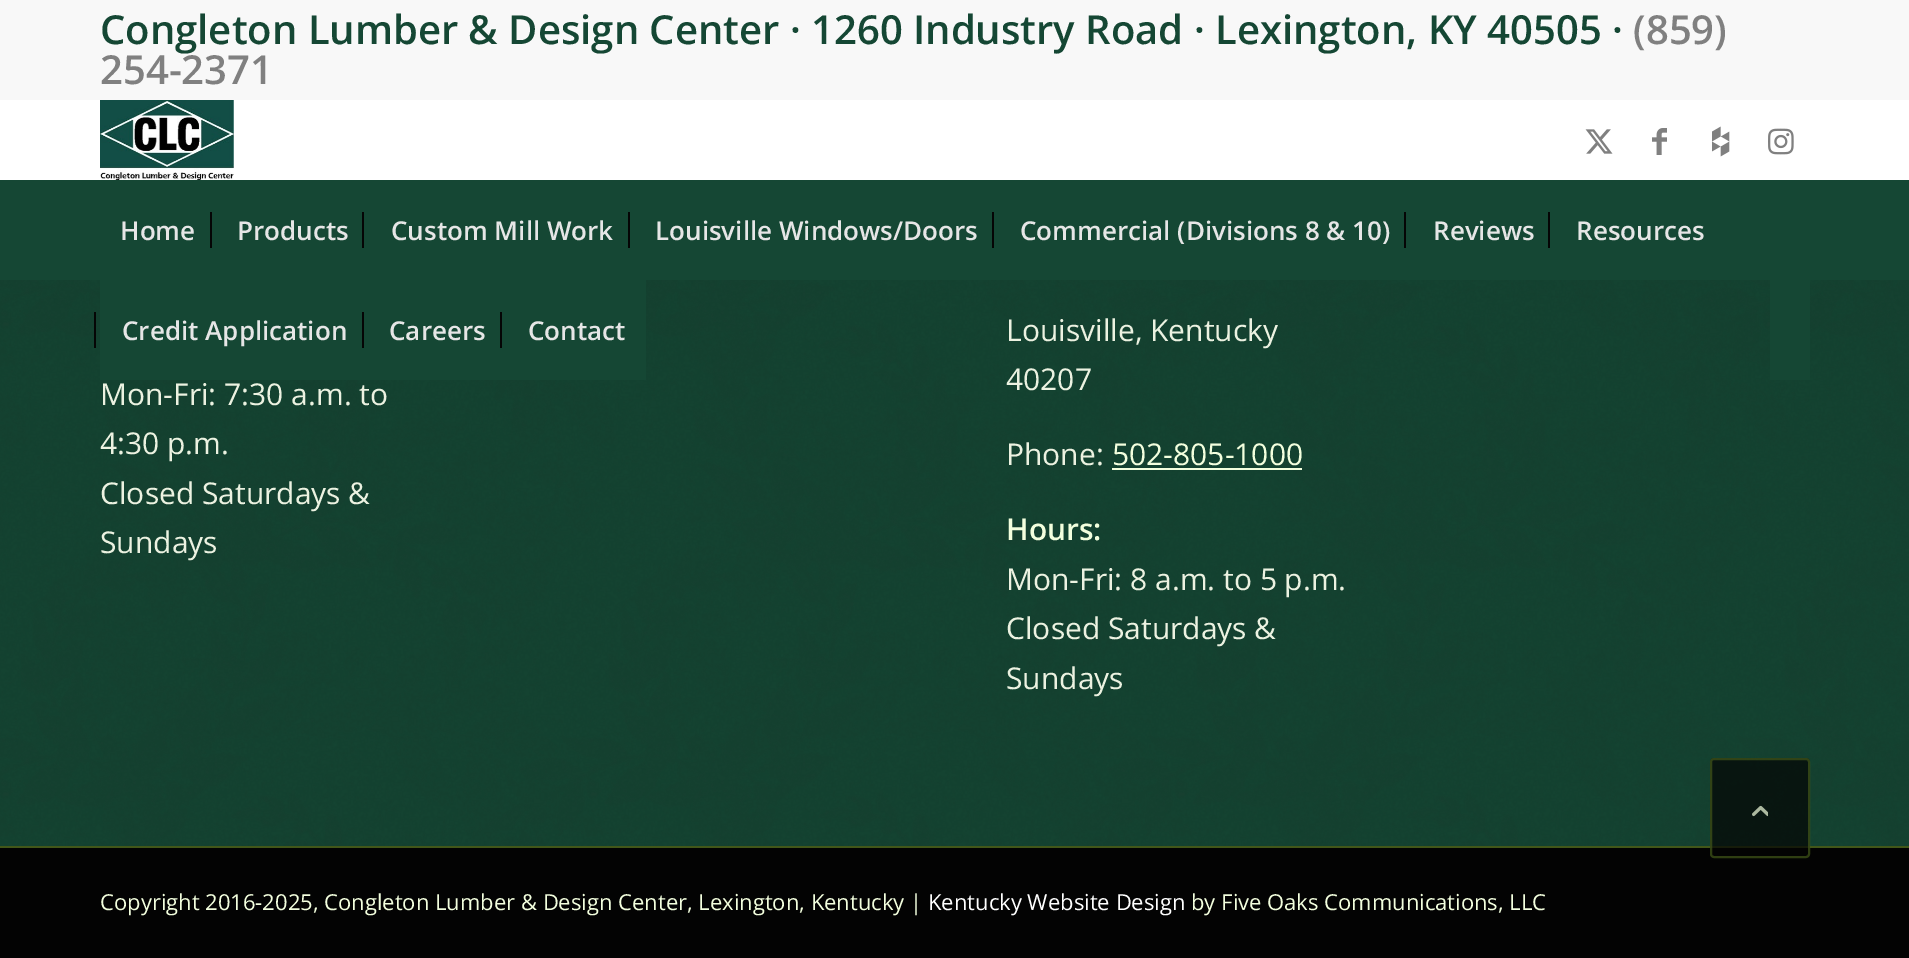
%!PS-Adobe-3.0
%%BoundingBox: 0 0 1909 958
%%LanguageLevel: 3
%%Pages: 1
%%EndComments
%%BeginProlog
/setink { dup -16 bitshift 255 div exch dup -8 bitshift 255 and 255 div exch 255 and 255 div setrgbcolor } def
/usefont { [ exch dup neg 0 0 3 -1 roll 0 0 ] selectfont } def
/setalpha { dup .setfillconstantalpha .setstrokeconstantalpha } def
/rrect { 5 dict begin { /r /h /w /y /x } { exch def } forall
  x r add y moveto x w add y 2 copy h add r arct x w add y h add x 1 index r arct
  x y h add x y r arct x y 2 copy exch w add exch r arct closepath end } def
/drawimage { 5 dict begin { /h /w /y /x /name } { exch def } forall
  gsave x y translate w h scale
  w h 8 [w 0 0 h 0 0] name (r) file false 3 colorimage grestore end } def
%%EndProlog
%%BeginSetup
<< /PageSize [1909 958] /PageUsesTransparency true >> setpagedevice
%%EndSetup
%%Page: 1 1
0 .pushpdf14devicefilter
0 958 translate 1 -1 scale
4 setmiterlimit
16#154734 setink
0 0 1909 958 rectfill
16#F8F8F8 setink
0 0 1909 100 rectfill
/OpenSans-SemiBold 40 usefont
16#154734 setink
100 44 moveto (Congleton Lumber & Design Center · 1260 Industry Road · Lexington, KY 40505 ·) show
16#808080 setink
1633 44 moveto (\(859\)) show
100 84 moveto (254-2371) show
16#FFFFFF setink
0 100 1909 80 rectfill
(img1.raw) 100 100 134 80 drawimage
(img2.raw) 1585 129 28 25 drawimage
(img3.raw) 1652 128 15 27 drawimage
(img4.raw) 1712 126 18 31 drawimage
(img5.raw) 1768 128 26 27 drawimage
/OpenSans-SemiBold 26 usefont
16#E6E6E6 setink
120 240 moveto (Home) show
237 240 moveto (Products) show
16#050505 setink
210 212 2 36 rectfill
16#E6E6E6 setink
391 240 moveto (Custom Mill Work) show
16#050505 setink
362 212 2 36 rectfill
16#E6E6E6 setink
655 240 moveto (Louisville Windows/Doors) show
16#050505 setink
628 212 2 36 rectfill
16#E6E6E6 setink
1020 240 moveto (Commercial \(Divisions 8 & 10\)) show
16#050505 setink
992 212 2 36 rectfill
16#E6E6E6 setink
1433 240 moveto (Reviews) show
16#050505 setink
1404 212 2 36 rectfill
16#E6E6E6 setink
1576 240 moveto (Resources) show
16#050505 setink
1548 212 2 36 rectfill
(img6.raw) 0 280 1909 566 drawimage
16#154734 setink
100 280 546 100 rectfill
16#E6E6E6 setink
122 340 moveto (Credit Application) show
16#050505 setink
94 312 2 36 rectfill
16#E6E6E6 setink
389 340 moveto (Careers) show
16#050505 setink
362 312 2 36 rectfill
16#E6E6E6 setink
528 340 moveto (Contact) show
16#050505 setink
500 312 2 36 rectfill
16#154734 setink
1770 280 40 100 rectfill
/OpenSans-Regular 30 usefont
16#ECF2E1 setink
[
    [(Mon-Fri: 7:30 a.m. to) 100 405]
    [(4:30 p.m.) 100 454]
    [(Closed Saturdays &) 100 504]
    [(Sundays) 100 553]
    [(Louisville, Kentucky) 1006 341]
    [(40207) 1006 390]
    [(Phone:) 1006 465]
] { aload pop moveto show } forall
16#F3FFDE setink
1112 465 moveto (502-805-1000) show
1112 468 190 2 rectfill
/OpenSans-SemiBold 30 usefont
1006 540 moveto (Hours:) show
/OpenSans-Regular 30 usefont
16#ECF2E1 setink
[
    [(Mon-Fri: 8 a.m. to 5 p.m.) 1006 590]
    [(Closed Saturdays &) 1006 639]
    [(Sundays) 1006 689]
] { aload pop moveto show } forall
16#030303 setink
0 848 1909 110 rectfill
16#425719 setink
0 846 1909 2 rectfill
/OpenSans-Regular 22 usefont
16#F3FFDE setink
100 910 moveto (Copyright 2016-2025, Congleton Lumber & Design Center, Lexington, Kentucky |) show
16#FFFFFF setink
928 910 moveto (Kentucky Website Design) show
16#F3FFDE setink
1191 910 moveto (by Five Oaks Communications, LLC) show
0.7 setalpha
16#030303 setink
1710 758 100 100 4 rrect fill
16#425719 setink
2 setlinewidth
1711 759 98 98 3 rrect stroke
1 setalpha
(img7.raw) 1752 805 16 12 drawimage
.poppdf14devicefilter showpage
%%EOF
